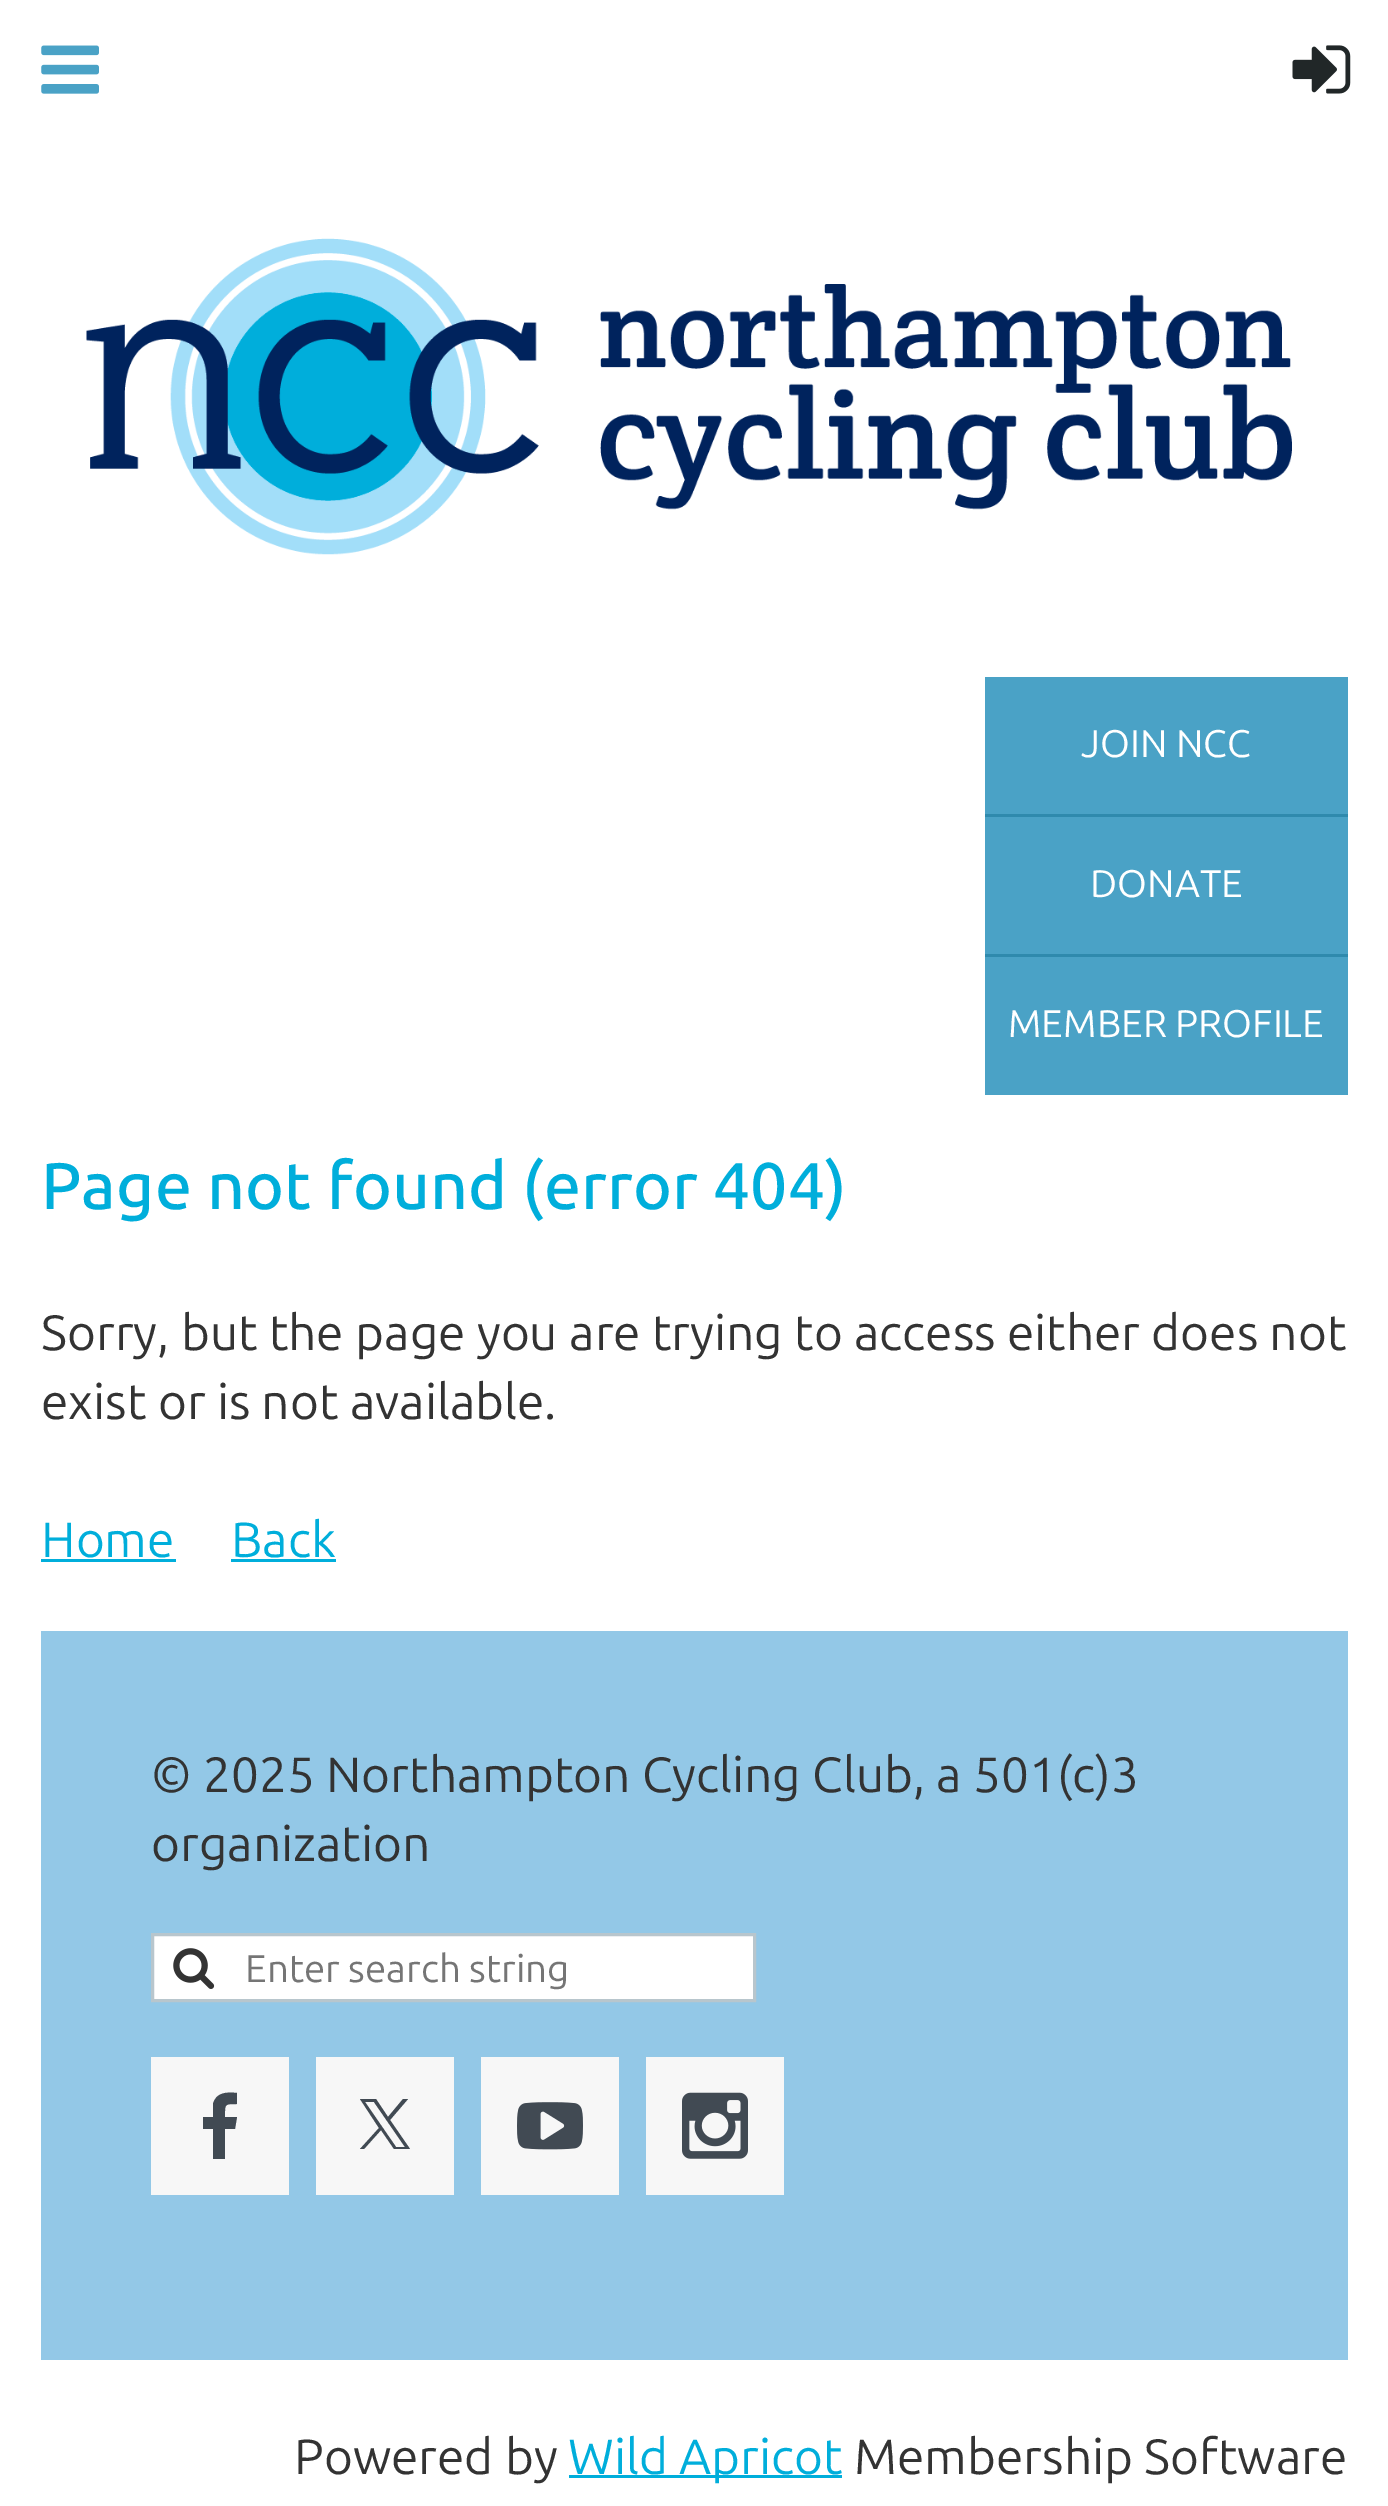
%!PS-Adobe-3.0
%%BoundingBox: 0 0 1388 2506
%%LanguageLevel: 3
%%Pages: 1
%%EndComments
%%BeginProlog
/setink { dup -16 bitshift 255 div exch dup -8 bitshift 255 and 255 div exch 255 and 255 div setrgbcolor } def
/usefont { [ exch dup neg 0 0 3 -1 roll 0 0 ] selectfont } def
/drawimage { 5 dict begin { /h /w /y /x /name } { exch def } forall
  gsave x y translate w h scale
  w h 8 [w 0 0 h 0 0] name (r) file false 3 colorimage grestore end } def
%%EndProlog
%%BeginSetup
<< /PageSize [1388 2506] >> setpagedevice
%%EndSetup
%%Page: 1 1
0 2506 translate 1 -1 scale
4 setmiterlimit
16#FFFFFF setink
0 0 1388 2506 rectfill
(img1.raw) 41 45 58 49 drawimage
(img2.raw) 1292 45 59 49 drawimage
(img3.raw) 86 238 1206 317 drawimage
16#4AA2C6 setink
985 677 363 137 rectfill
/Ubuntu-Regular 38.5 usefont
16#FFFFFF setink
1081 757 moveto (JOIN NCC) show
16#2F8AAD setink
985 814 363 3 rectfill
16#4AA2C6 setink
985 817 363 137 rectfill
16#FFFFFF setink
1090 897 moveto (DONATE) show
16#2F8AAD setink
985 954 363 3 rectfill
16#4AA2C6 setink
985 957 363 138 rectfill
16#FFFFFF setink
1008 1037 moveto (MEMBER PROFILE) show
/Ubuntu-Medium 66 usefont
16#00AEDB setink
41 1209 moveto (Page not found \(error 404\)) show
/Ubuntu-Regular 49.5 usefont
16#333333 setink
41 1350 moveto (Sorry, but the page you are trying to access either does not) show
41 1419 moveto (exist or is not available.) show
16#00AEDB setink
41 1557 moveto (Home) show
41 1559 135 3 rectfill
231 1557 moveto (Back) show
231 1559 105 3 rectfill
16#93C8E7 setink
41 1631 1307 729 rectfill
16#333333 setink
151 1792 moveto (© 2025 Northampton Cycling Club, a 501\(c\)3) show
151 1861 moveto (organization) show
16#FFFFFF setink
152.5 1934.5 moveto 754.5 1934.5 lineto 754.5 2000.5 lineto 152.5 2000.5 lineto closepath gsave fill grestore
16#B8C6CD setink
3 setlinewidth
stroke
(img4.raw) 173 1948 42 41 drawimage
/Ubuntu-Regular 38.5 usefont
16#757575 setink
245 1982 moveto (Enter search string) show
16#F7F7F7 setink
151 2057 138 138 rectfill
16#414A53 setink
237 2104 moveto 224 2104 225 2104 225 2117 curveto 237 2117 lineto 235 2129 lineto 225 2129 lineto 225 2159 lineto 213 2159 lineto 213 2129 lineto 203 2129 lineto 203 2117 lineto 213 2117 lineto 213 2104 lineto 216 2092 227 2092 237 2093 curveto closepath fill
16#F7F7F7 setink
316 2057 138 138 rectfill
16#414A53 setink
360 2099 moveto 376 2099 lineto 388 2117 lineto 403 2099 lineto 408 2099 lineto 390 2120 lineto 410 2149 lineto 394 2149 lineto 381 2130 lineto 364 2149 lineto 360 2149 lineto 379 2128 lineto closepath 365 2102 moveto 396 2147 lineto 405 2147 lineto 374 2102 lineto closepath fill
16#F7F7F7 setink
481 2057 138 138 rectfill
(img5.raw) 517 2102 66 48 drawimage
646 2057 138 138 rectfill
(img6.raw) 682 2092 66 67 drawimage
/Ubuntu-Regular 49.5 usefont
16#333333 setink
294 2474 moveto (Powered by) show
16#00AEDB setink
569 2475 273 3 rectfill
568 2474 moveto (Wild Apricot) show
16#333333 setink
854 2474 moveto (Membership Software) show
showpage
%%EOF
